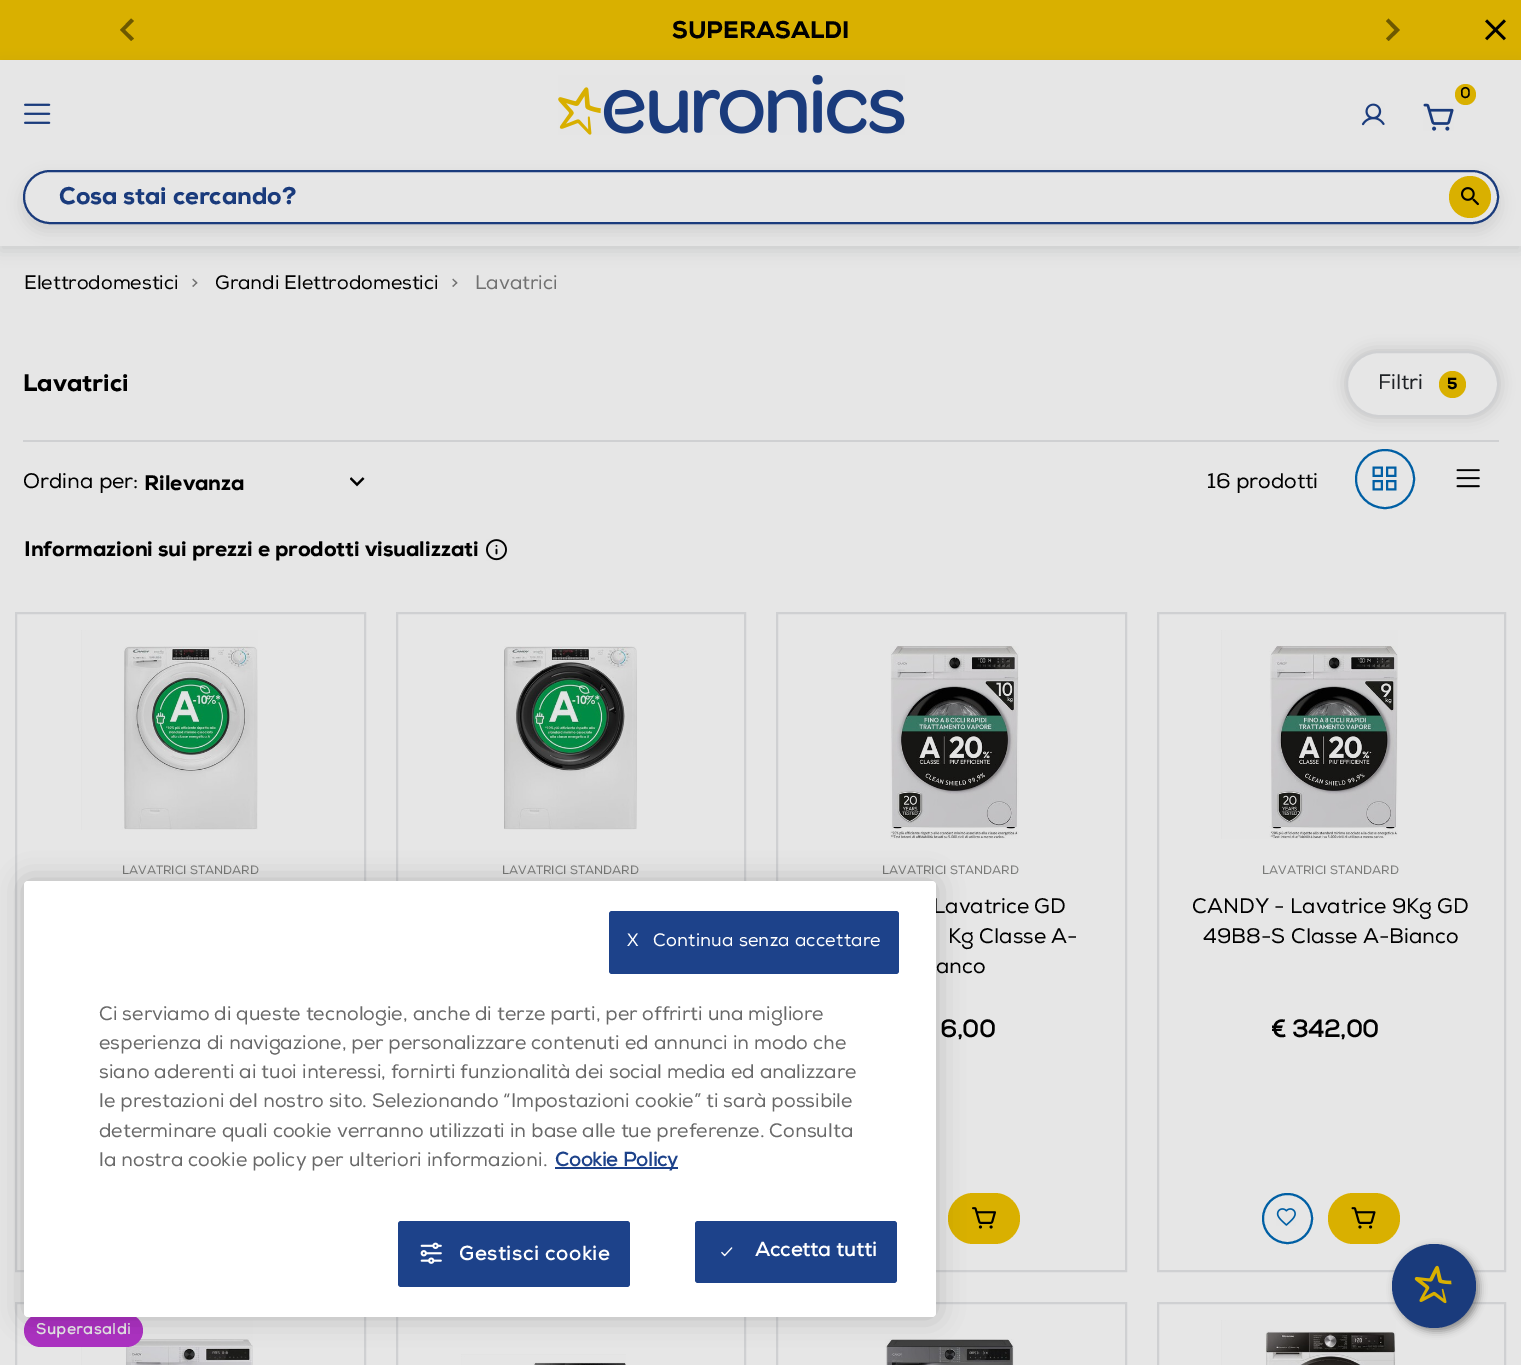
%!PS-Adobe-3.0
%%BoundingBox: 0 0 1521 1365
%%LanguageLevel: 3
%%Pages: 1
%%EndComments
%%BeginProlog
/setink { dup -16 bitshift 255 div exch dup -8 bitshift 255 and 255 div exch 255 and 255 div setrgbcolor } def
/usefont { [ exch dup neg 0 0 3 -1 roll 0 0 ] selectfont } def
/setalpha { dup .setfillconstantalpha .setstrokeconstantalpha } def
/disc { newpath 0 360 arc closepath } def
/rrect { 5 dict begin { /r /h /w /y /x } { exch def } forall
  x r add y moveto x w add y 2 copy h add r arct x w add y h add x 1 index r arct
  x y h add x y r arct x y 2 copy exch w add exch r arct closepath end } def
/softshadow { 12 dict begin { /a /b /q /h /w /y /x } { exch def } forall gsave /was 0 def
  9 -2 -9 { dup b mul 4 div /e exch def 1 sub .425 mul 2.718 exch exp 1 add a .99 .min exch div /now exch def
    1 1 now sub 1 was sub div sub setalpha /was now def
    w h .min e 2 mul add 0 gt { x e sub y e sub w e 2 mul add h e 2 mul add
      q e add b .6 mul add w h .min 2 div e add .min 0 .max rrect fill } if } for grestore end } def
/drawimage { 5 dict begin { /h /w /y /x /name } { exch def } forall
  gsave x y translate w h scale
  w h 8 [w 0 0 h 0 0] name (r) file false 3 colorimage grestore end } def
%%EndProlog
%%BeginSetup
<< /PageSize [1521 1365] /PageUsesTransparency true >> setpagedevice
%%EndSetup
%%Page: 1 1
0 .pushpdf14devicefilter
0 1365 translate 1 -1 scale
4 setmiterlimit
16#E6E6E6 setink
0 0 1521 1365 rectfill
16#D9B000 setink
0 0 1521 60 rectfill
16#6D5800 setink
134 38.5 moveto 131 41 lineto 120 30 lineto 131 18.5 lineto 134 21 lineto 125 30 lineto closepath fill
/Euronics-Black 24 usefont
16#000000 setink
672 38 moveto (SUPERASALDI) show
16#6D5800 setink
1386 38.5 moveto 1394.5 30 lineto 1386 21 lineto 1388.5 18.5 lineto 1400 30 lineto 1388.5 41 lineto closepath fill
(img1.raw) 1485 19 21 22 drawimage
gsave
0 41 moveto 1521 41 lineto 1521 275 lineto 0 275 lineto closepath 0 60 moveto 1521 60 lineto 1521 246 lineto 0 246 lineto closepath eoclip newpath
16#4D4E4F setink
0 65 1521 186 0 7.5 0.16 softshadow
grestore
(img2.raw) 558 75 347 60 drawimage
16#D9B000 setink
1465.5 94.5 10.5 disc fill
/Euronics-Bold 15 usefont
16#000000 setink
1460 98 moveto (0) show
(img3.raw) 1423 103 31 28 drawimage
(img4.raw) 1361 103 24 23 drawimage
(img5.raw) 24 103 27 21 drawimage
gsave
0 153 moveto 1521 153 lineto 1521 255 lineto 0 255 lineto closepath 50 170 moveto 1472 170 lineto 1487 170 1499 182 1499 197 curveto 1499 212 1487 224 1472 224 curveto 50 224 lineto 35 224 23 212 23 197 curveto 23 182 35 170 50 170 curveto closepath eoclip newpath
23 177 1476 54 27 7.5 0.1 softshadow
grestore
16#1A3B7C setink
2 setlinewidth
24 171 1474 52 26 rrect stroke
/Euronics-Black 24 usefont
59 204 moveto (Cosa stai cercando?) show
16#D9B000 setink
1470 197 21 disc fill
(img6.raw) 1461 187 18 19 drawimage
/Euronics-Regular 19.5 usefont
16#000000 setink
24 289 moveto (Elettrodomestici) show
16#717171 setink
191 289 moveto (>) show
16#000000 setink
215 289 moveto (Grandi Elettrodomestici) show
16#717171 setink
451 289 moveto (>) show
475 289 moveto (Lavatrici) show
16#CFD0D2 setink
23 440 1476 2 rectfill
/Euronics-Black 24 usefont
16#000000 setink
23 391 moveto (Lavatrici) show
/Euronics-Regular 21 usefont
23 488 moveto (Ordina per:) show
(img7.raw) 350 477 15 10 drawimage
/Euronics-Black 21 usefont
144 490 moveto (Rilevanza) show
/Euronics-Regular 21 usefont
1207 488 moveto (16 prodotti) show
16#005FA4 setink
1385 479 29 disc stroke
(img8.raw) 1372 466 25 25 drawimage
(img9.raw) 1456 469 24 19 drawimage
gsave
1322 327 moveto 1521 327 lineto 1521 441 lineto 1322 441 lineto closepath 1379 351 moveto 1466 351 lineto 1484 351 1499 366 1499 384 curveto 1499 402 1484 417 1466 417 curveto 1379 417 lineto 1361 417 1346 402 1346 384 curveto 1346 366 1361 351 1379 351 curveto closepath eoclip newpath
16#000000 setink
1346 351 153 66 33 7.5 0.16 softshadow
grestore
16#CFD0D2 setink
1347 352 151 64 32 rrect stroke
16#1E2125 setink
1378 389 moveto (Filtri) show
16#D9B000 setink
1452.5 384.5 13.5 disc fill
/Euronics-Black 16 usefont
16#000000 setink
1447 389 moveto (5) show
/Euronics-Black 21 usefont
24 556 moveto (Informazioni sui prezzi e prodotti visualizzati) show
(img10.raw) 486 539 21 22 drawimage
16#CFD0D2 setink
16 613 349 658 rectstroke
(img11.raw) 81 630 177 200 drawimage
/Euronics-Regular 12 usefont
16#797A78 setink
122 874 moveto (LAVATRICI STANDARD) show
16#CFD0D2 setink
397 613 348 658 rectstroke
(img12.raw) 504 646 133 184 drawimage
16#797A78 setink
502 874 moveto (LAVATRICI STANDARD) show
16#CFD0D2 setink
777 613 349 658 rectstroke
(img13.raw) 890 646 129 193 drawimage
16#797A78 setink
882 874 moveto (LAVATRICI STANDARD) show
/Euronics-Regular 21 usefont
16#000000 setink
[
    [(Lavatrice GD) 933 913]
    [(Kg Classe A-) 948 943]
    [(anco) 936 973]
] { aload pop moveto show } forall
/Euronics-Bold 24 usefont
940 1037 moveto (6,00) show
16#D9B000 setink
948 1193 72 51 25.5 rrect fill
(img14.raw) 972 1207 24 22 drawimage
16#CFD0D2 setink
1158 613 347 658 rectstroke
(img15.raw) 1221 630 177 209 drawimage
/Euronics-Regular 12 usefont
16#797A78 setink
1262 874 moveto (LAVATRICI STANDARD) show
/Euronics-Regular 21 usefont
16#000000 setink
1192 913 moveto (CANDY - Lavatrice 9Kg GD) show
1203 943 moveto (49B8-S Classe A-Bianco) show
/Euronics-Bold 24 usefont
1271 1037 moveto (€ 342,00) show
16#005FA4 setink
1287.5 1218.5 24.5 disc stroke
(img16.raw) 1276 1208 20 18 drawimage
16#D9B000 setink
1328 1193 72 51 25.5 rrect fill
(img17.raw) 1351 1207 25 22 drawimage
16#CFD0D2 setink
16 1303 349 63 rectstroke
(img18.raw) 81 1320 172 45 drawimage
16#AB31C2 setink
24 1314 119 33 16.5 rrect fill
/Euronics-Bold 15 usefont
16#E6E6E6 setink
36 1334 moveto 0.75 0 (Superasaldi) ashow
16#CFD0D2 setink
397 1303 348 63 rectstroke
(img19.raw) 461 1354 165 11 drawimage
777 1303 349 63 rectstroke
(img20.raw) 885 1339 129 26 drawimage
1158 1303 347 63 rectstroke
(img21.raw) 1221 1320 175 45 drawimage
16#000000 setink
24 881 912 436 4 13.5 0.2 softshadow
16#FFFFFF setink
24 881 912 436 4 rrect fill
16#1D428A setink
609 911 290 63 3 rrect fill
/Euronics-Regular 18 usefont
16#FFFFFF setink
627 946 moveto 0.2 0 (X   Continua senza accettare) ashow
/Euronics-Regular 19.5 usefont
16#696969 setink
[
    [(Ci serviamo di queste tecnologie, anche di terze parti, per offrirti una migliore) 99 1020]
    [(esperienza di navigazione, per personalizzare contenuti ed annunci in modo che) 99 1049]
    [(siano aderenti ai tuoi interessi, fornirti funzionalità dei social media ed analizzare) 99 1078]
    [(le prestazioni del nostro sito. Selezionando “Impostazioni cookie” ti sarà possibile) 99 1107]
    [(determinare quali cookie verranno utilizzati in base alle tue preferenze. Consulta) 99 1137]
    [(la nostra cookie policy per ulteriori informazioni.) 99 1166]
] { aload pop moveto show } forall
16#1D428A setink
555 1167 123 2 rectfill
/Euronics-Bold 19.5 usefont
555 1166 moveto (Cookie Policy) show
398 1221 232 66 3 rrect fill
(img22.raw) 420 1242 22 22 drawimage
16#FFFFFF setink
459 1260 moveto 1 0 (Gestisci cookie) ashow
16#1D428A setink
695 1221 202 62 3 rrect fill
(img23.raw) 721 1247 12 10 drawimage
16#FFFFFF setink
755 1256 moveto 0.25 0 (Accetta tutti) ashow
16#292929 setink
1395 1247 84 84 42 4 0.5 softshadow
16#1A3B7C setink
1434 1286 42 disc fill
(img24.raw) 1403 1265 49 52 drawimage
.poppdf14devicefilter showpage
%%EOF
